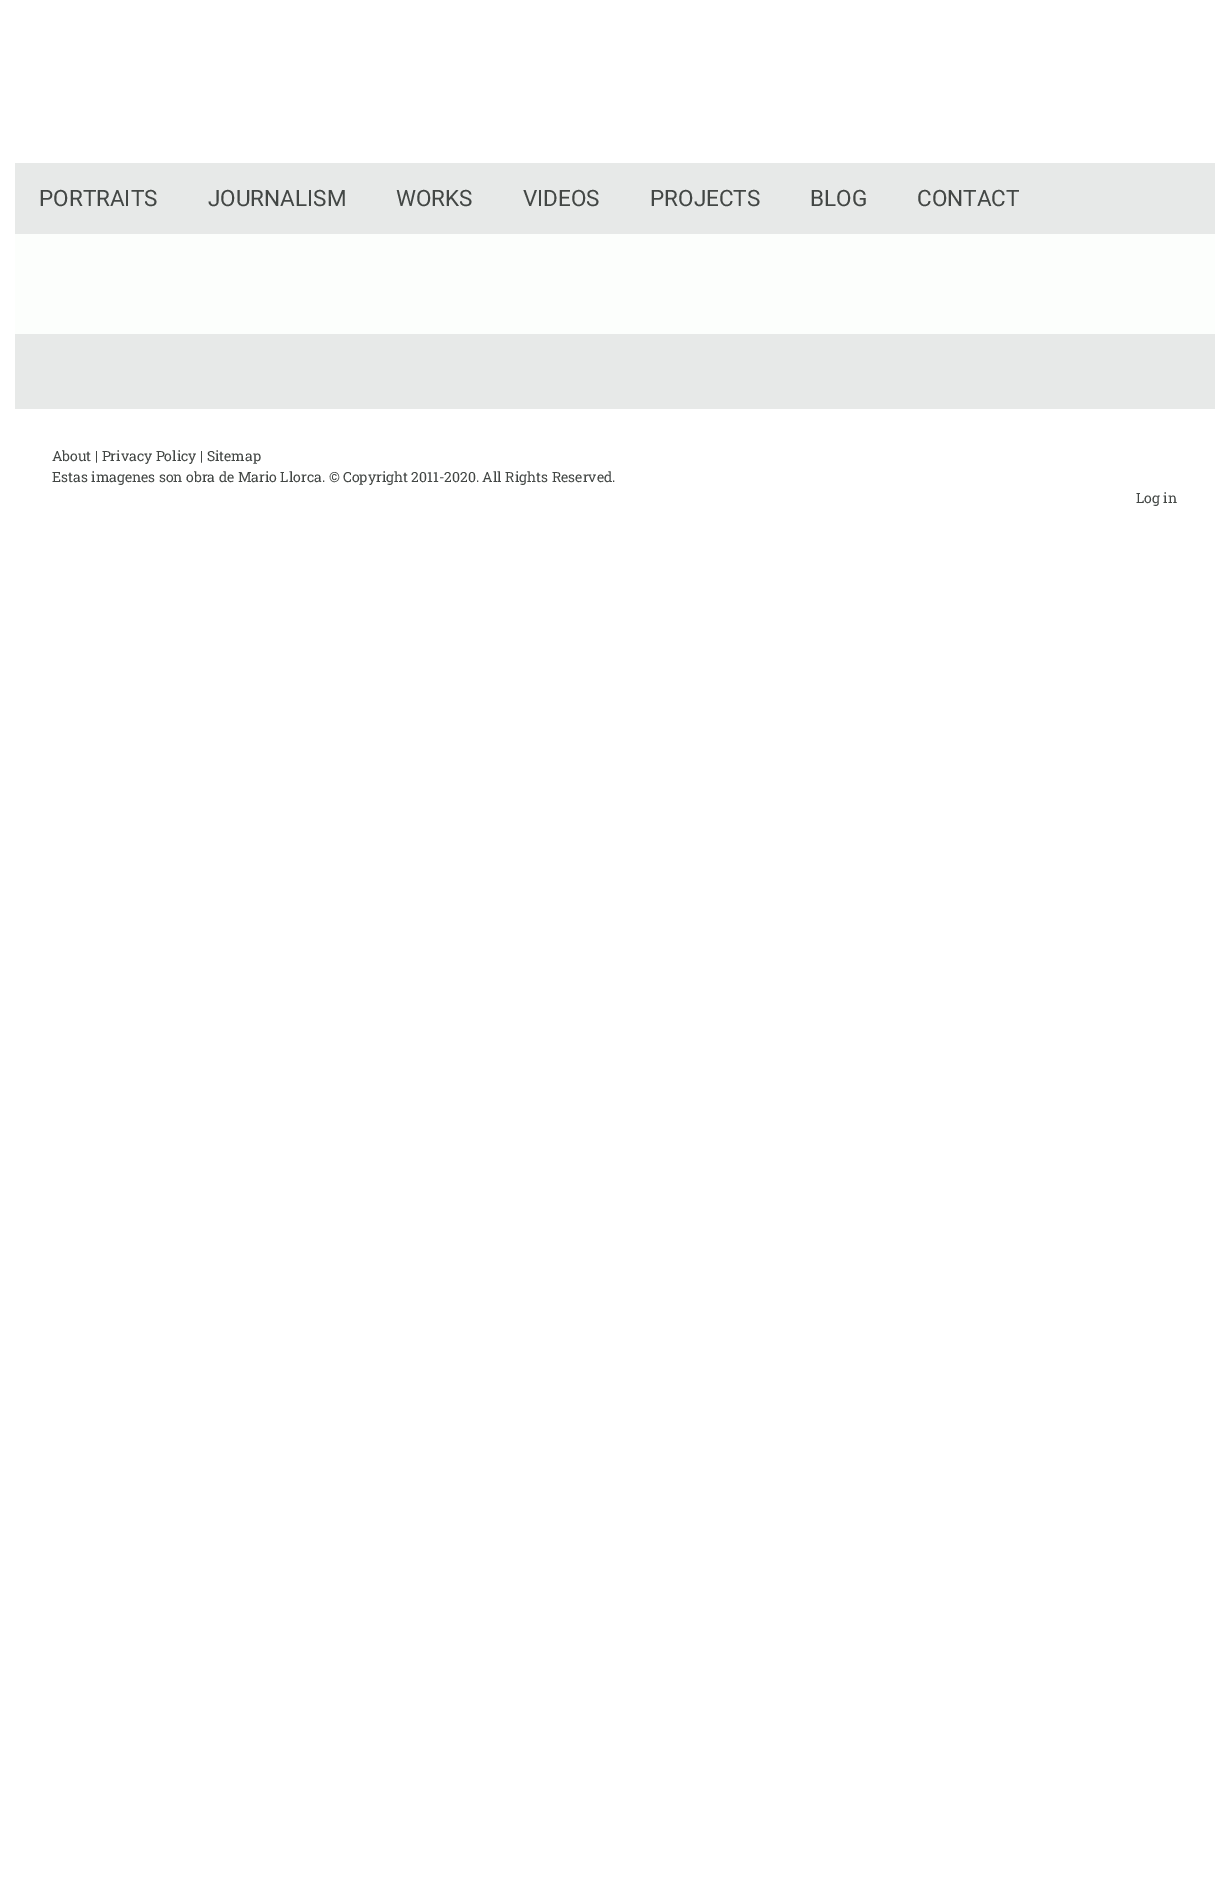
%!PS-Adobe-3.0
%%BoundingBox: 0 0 1228 1884
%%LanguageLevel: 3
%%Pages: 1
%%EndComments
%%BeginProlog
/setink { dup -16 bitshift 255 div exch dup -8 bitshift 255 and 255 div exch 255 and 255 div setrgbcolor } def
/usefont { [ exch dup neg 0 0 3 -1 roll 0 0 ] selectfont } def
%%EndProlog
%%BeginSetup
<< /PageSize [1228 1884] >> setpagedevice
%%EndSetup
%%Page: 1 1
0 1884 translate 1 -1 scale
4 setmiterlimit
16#FFFFFF setink
0 0 1228 1884 rectfill
16#E7E9E8 setink
15 163 1200 71 rectfill
/Roboto-Regular 22.5 usefont
16#434745 setink
[
    [(PORTRAITS) 39 206]
    [(JOURNALISM) 208 206]
    [(WORKS) 396 206]
    [(VIDEOS) 523 206]
    [(PROJECTS) 650 206]
    [(BLOG) 810 206]
    [(CONTACT) 917 206]
] { aload pop moveto show } forall
16#FCFEFC setink
15 234 1200 100 rectfill
16#E7E9E8 setink
15 334 1200 75 rectfill
/RobotoSlab-Regular 14 usefont
16#434745 setink
[
    [(About | Privacy Policy | Sitemap) 52 461]
    [(Estas imagenes son obra de Mario Llorca. © Copyright 2011-2020. All Rights Reserved.) 52 482]
    [(Log in) 1136 503]
] { aload pop moveto show } forall
showpage
%%EOF
